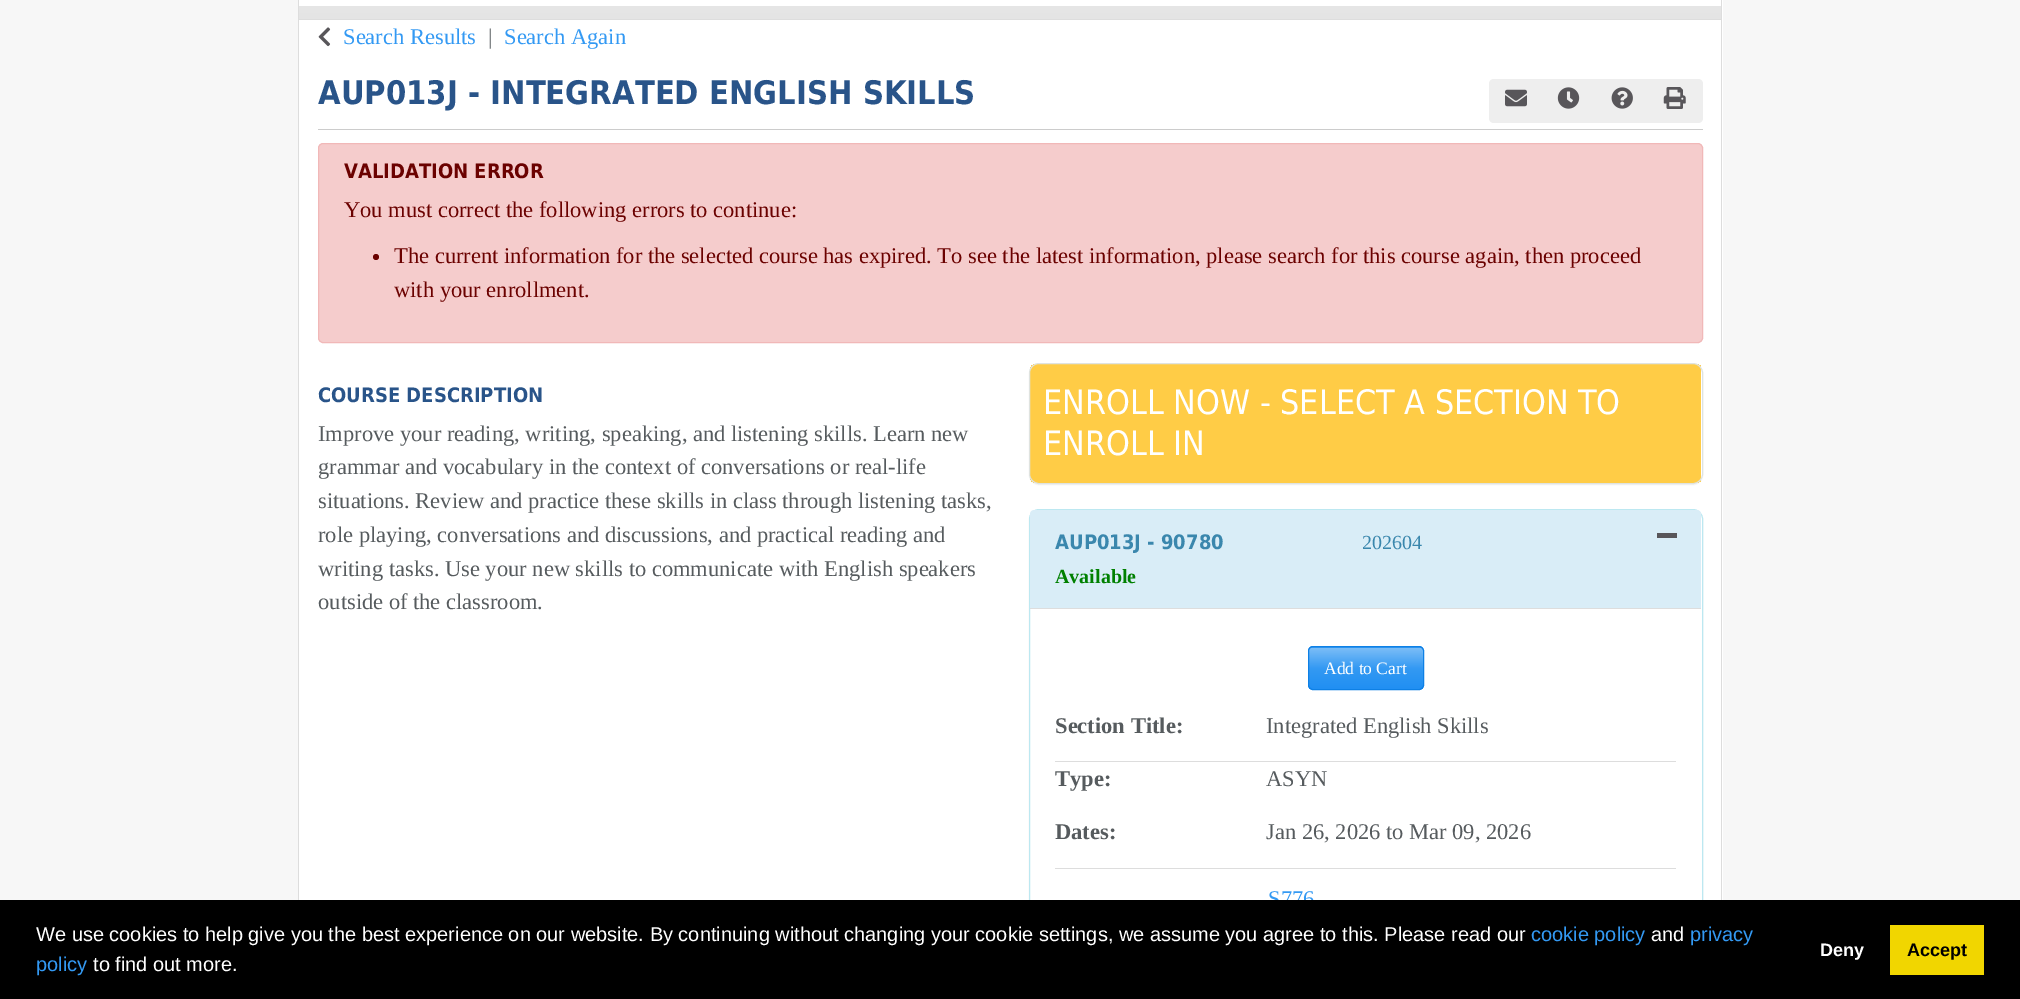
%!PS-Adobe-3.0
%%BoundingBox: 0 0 2020 999
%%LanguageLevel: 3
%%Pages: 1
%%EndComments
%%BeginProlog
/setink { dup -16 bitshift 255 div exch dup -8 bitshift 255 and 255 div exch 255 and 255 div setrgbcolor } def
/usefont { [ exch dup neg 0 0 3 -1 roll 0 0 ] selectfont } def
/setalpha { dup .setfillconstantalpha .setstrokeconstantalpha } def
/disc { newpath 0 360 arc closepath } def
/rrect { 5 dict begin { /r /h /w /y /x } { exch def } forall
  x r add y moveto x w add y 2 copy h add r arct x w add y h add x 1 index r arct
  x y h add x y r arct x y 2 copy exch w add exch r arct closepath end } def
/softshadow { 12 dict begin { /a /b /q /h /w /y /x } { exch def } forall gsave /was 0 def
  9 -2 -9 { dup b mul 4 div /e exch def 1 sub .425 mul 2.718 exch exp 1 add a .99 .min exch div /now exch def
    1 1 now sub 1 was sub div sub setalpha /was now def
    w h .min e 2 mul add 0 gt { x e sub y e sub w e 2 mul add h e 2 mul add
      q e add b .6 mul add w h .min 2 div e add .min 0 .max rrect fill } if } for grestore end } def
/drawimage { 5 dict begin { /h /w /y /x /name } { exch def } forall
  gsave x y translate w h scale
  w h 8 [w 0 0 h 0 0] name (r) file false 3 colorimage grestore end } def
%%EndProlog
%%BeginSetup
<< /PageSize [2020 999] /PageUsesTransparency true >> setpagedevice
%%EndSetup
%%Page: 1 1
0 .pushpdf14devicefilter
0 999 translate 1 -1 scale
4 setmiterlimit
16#F7F7F7 setink
0 0 2020 999 rectfill
[
    [1722 0 1 20 16#FFFFFF]
    [1721 0 1 20 16#DDDDDD]
    [298 0 1 900 16#DDDDDD]
] { aload pop setink rectfill } forall
gsave 299 6 moveto 1721 6 lineto 1721 19 lineto 299 19 lineto closepath clip newpath
<< /ShadingType 2 /ColorSpace /DeviceRGB /Coords [1010 -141 1010 19] /Extend [true true] /Function << /FunctionType 3 /Domain [0 1] /Functions [<< /FunctionType 2 /Domain [0 1] /C0 [1 1 1] /C1 [0.933 0.933 0.933] /N 1 >> << /FunctionType 2 /Domain [0 1] /C0 [0.933 0.933 0.933] /C1 [0.894 0.894 0.894] /N 1 >>] /Bounds [0.5] /Encode [0 1 0 1] >> >> shfill grestore
[
    [299 19 1422 1 16#DDDDDD]
    [299 0 1422 6 16#FFFFFF]
    [299 20 1424 880 16#FFFFFF]
    [1721 20 1 880 16#DDDDDD]
] { aload pop setink rectfill } forall
(img1.raw) 318 27 13 20 drawimage
/LiberationSerif-Regular 22.5 usefont
16#3399F3 setink
343 44 moveto (Search Results) show
16#565B5E setink
488 44 moveto (|) show
16#3399F3 setink
504 44 moveto (Search Again) show
16#CCCCCC setink
318 129 1385 1 rectfill
/DejaVuSans-Bold 32.5 usefont
16#295489 setink
318 104 moveto (AUP013J - INTEGRATED ENGLISH SKILLS) show
16#EEEEEE setink
1494 79 moveto 1543 79 lineto 1543 123 lineto 1494 123 lineto 1491 123 1489 121 1489 118 curveto 1489 84 lineto 1489 81 1491 79 1494 79 curveto closepath fill
(img2.raw) 1505 89 22 18 drawimage
1543 79 105 44 rectfill
(img3.raw) 1557 87 23 22 drawimage
1648 79 moveto 1698 79 lineto 1701 79 1703 81 1703 84 curveto 1703 118 lineto 1703 121 1701 123 1698 123 curveto 1648 123 lineto closepath fill
(img4.raw) 1663 87 23 22 drawimage
(img5.raw) 1611 87 22 22 drawimage
16#F5CCCC setink
318.5 143.5 1384 199 4.5 rrect gsave fill grestore
16#F1B8B8 setink
stroke
/DejaVuSans-Bold 20 usefont
16#6B0100 setink
344 178 moveto (VALIDATION ERROR) show
/LiberationSerif-Regular 22.5 usefont
344 217 moveto (You must correct the following errors to continue:) show
376 257 3 disc fill
394 263 moveto (The current information for the selected course has expired. To see the latest information, please search for this course again, then proceed) show
394 297 moveto (with your enrollment.) show
/DejaVuSans-Bold 20 usefont
16#295489 setink
318 402 moveto (COURSE DESCRIPTION) show
/LiberationSerif-Regular 22.5 usefont
16#565B5E setink
[
    [(Improve your reading, writing, speaking, and listening skills. Learn new) 318 441]
    [(grammar and vocabulary in the context of conversations or real-life) 318 474]
    [(situations. Review and practice these skills in class through listening tasks,) 318 508]
    [(role playing, conversations and discussions, and practical reading and) 318 542]
    [(writing tasks. Use your new skills to communicate with English speakers) 318 576]
    [(outside of the classroom.) 318 609]
] { aload pop moveto show } forall
16#000000 setink
1029 364 674 121 10 0.5 0.05 softshadow
16#FFFFFF setink
1029 363 674 121 10 rrect fill
gsave
1029 363 674 121 10 rrect clip newpath
16#FFCC46 setink
1030 364 671 119 rectfill
grestore
16#DFE3E0 setink
1029.5 363.5 673 120 9.5 rrect stroke
/DejaVuSans-Regular 33.75 usefont
16#FFFFFF setink
1043 414 moveto (ENROLL NOW - SELECT A SECTION TO) show
1043 455 moveto (ENROLL IN) show
16#000000 setink
1029 510 674 451 10 0.5 0.05 softshadow
16#FFFFFF setink
1029.5 509.5 673 450 9.5 rrect gsave fill grestore
16#BCE8F1 setink
stroke
16#D9EDF7 setink
1034 510 moveto 1697 510 lineto 1699 510 1701 512 1701 514 curveto 1701 608 lineto 1030 608 lineto 1030 514 lineto 1030 512 1032 510 1034 510 curveto closepath fill
/DejaVuSans-Bold 20 usefont
16#3A87AD setink
1055 549 moveto (AUP013J - 90780) show
/LiberationSerif-Regular 20 usefont
1362 549 moveto (202604) show
16#58565A setink
1657 533 20 5 rectfill
/LiberationSerif-Bold 20 usefont
16#008000 setink
1055 583 moveto (Available) show
16#DDDDDD setink
1030 608 671 1 rectfill
16#3399F3 setink
1308 646 116 44 5 rrect fill
gsave 1309 648 moveto 1423 648 lineto 1423 689 lineto 1309 689 lineto closepath clip newpath
<< /ShadingType 2 /ColorSpace /DeviceRGB /Coords [1366 648 1366 689] /Extend [true true] /Function << /FunctionType 3 /Domain [0 1] /Functions [<< /FunctionType 2 /Domain [0 1] /C0 [0.482 0.741 0.969] /C1 [0.2 0.6 0.953] /N 1 >> << /FunctionType 2 /Domain [0 1] /C0 [0.2 0.6 0.953] /C1 [0.125 0.561 0.949] /N 1 >>] /Bounds [0.5] /Encode [0 1 0 1] >> >> shfill grestore
16#0E80E5 setink
1308.5 646.5 115 43 4.5 rrect stroke
/LiberationSerif-Regular 17.5 usefont
16#FFFFFF setink
1324 674 moveto (Add to Cart) show
/LiberationSerif-Bold 22.5 usefont
16#565B5E setink
1055 733 moveto (Section Title:) show
/LiberationSerif-Regular 22.5 usefont
1266 733 moveto (Integrated English Skills) show
16#DDDDDD setink
1055 761 621 1 rectfill
1055 868 621 1 rectfill
/LiberationSerif-Bold 22.5 usefont
16#565B5E setink
1055 786 moveto (Type:) show
/LiberationSerif-Regular 22.5 usefont
1266 786 moveto (ASYN) show
/LiberationSerif-Bold 22.5 usefont
1055 839 moveto (Dates:) show
/LiberationSerif-Regular 22.5 usefont
1266 839 moveto (Jan 26, 2026 to Mar 09, 2026) show
16#3399F3 setink
1268 906 moveto (S776) show
16#000000 setink
0 900 2020 99 rectfill
/LiberationSans-Regular 20 usefont
16#FFFFFF setink
36 941 moveto (We use cookies to help give you the best experience on our website. By continuing without changing your cookie settings, we assume you agree to this. Please read our) show
16#3399F3 setink
1531 941 moveto (cookie policy) show
16#FFFFFF setink
1651 941 moveto (and) show
16#3399F3 setink
1690 941 moveto (privacy) show
36 971 moveto (policy) show
16#FFFFFF setink
93 971 moveto (to find out more.) show
/LiberationSans-Bold 18 usefont
1820 956 moveto (Deny) show
16#F1D600 setink
1890 925 94 50 rectfill
16#000000 setink
1907 956 moveto (Accept) show
.poppdf14devicefilter showpage
%%EOF
